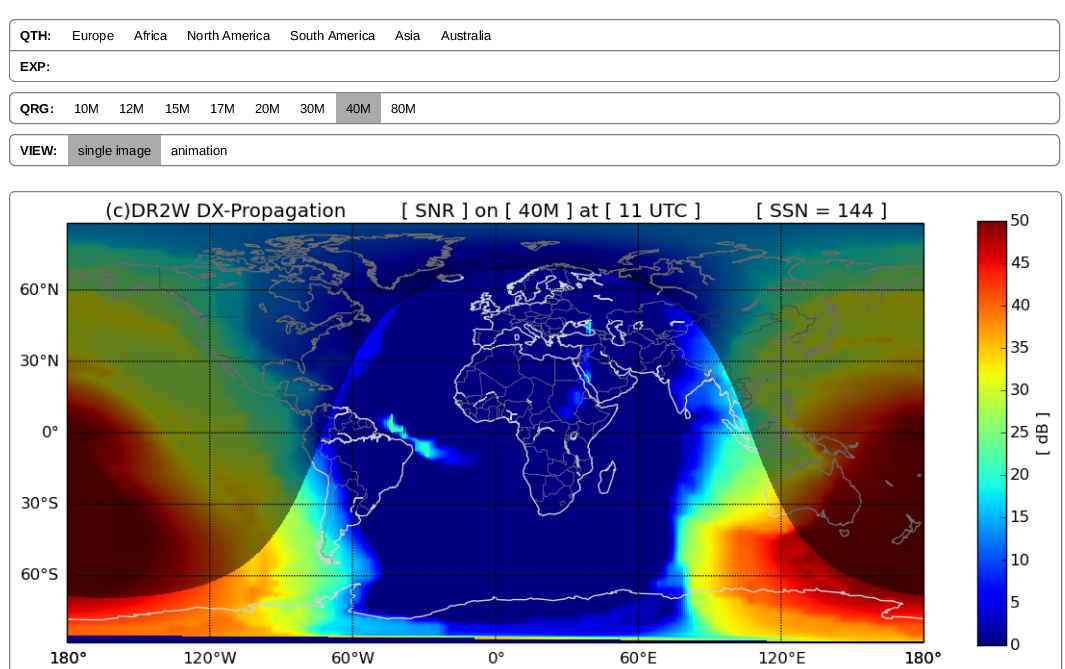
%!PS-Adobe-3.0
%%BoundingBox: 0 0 1065 669
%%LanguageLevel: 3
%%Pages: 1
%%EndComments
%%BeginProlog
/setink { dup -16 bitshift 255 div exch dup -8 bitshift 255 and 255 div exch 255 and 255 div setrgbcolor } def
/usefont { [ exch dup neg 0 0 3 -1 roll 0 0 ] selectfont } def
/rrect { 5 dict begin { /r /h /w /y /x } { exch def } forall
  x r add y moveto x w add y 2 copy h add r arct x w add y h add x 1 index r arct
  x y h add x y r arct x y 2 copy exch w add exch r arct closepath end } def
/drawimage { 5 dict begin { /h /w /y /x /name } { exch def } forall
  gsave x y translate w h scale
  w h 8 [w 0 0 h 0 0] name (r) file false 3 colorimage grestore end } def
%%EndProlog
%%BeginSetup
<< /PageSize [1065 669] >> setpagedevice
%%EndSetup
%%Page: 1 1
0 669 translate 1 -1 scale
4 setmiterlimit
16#FFFFFF setink
0 0 1065 669 rectfill
16#808080 setink
15 19.5 moveto 1054 19.5 lineto 1057 19.5 1059.5 22 1059.5 25 curveto 1059.5 50.5 lineto 9.5 50.5 lineto 9.5 25 lineto 9.5 22 12 19.5 15 19.5 curveto closepath stroke
/LiberationSans-Bold 13 usefont
16#000000 setink
20 40 moveto (QTH:) show
/LiberationSans-Regular 13 usefont
[
    [(Europe) 72 40]
    [(Africa) 134 40]
    [(North America) 187 40]
    [(South America) 290 40]
    [(Asia) 395 40]
    [(Australia) 441 40]
] { aload pop moveto show } forall
16#808080 setink
9 51 moveto 1060 51 lineto 1060 76 lineto 1060 79 1057 82 1054 82 curveto 15 82 lineto 12 82 9 79 9 76 curveto closepath 10 51 moveto 1059 51 lineto 1059 76 lineto 1059 79 1057 81 1054 81 curveto 15 81 lineto 12 81 10 79 10 76 curveto closepath eofill
/LiberationSans-Bold 13 usefont
16#000000 setink
20 71 moveto (EXP:) show
16#808080 setink
9.5 92.5 1050 31 5.5 rrect stroke
16#000000 setink
20 113 moveto (QRG:) show
/LiberationSans-Regular 13 usefont
[
    [(10M) 74 113]
    [(12M) 119 113]
    [(15M) 165 113]
    [(17M) 210 113]
    [(20M) 255 113]
    [(30M) 300 113]
] { aload pop moveto show } forall
16#AAAAAA setink
336 93 45 30 rectfill
16#000000 setink
346 113 moveto (40M) show
391 113 moveto (80M) show
16#808080 setink
9.5 134.5 1050 31 5.5 rrect stroke
/LiberationSans-Bold 13 usefont
16#000000 setink
20 155 moveto (VIEW:) show
16#AAAAAA setink
68 135 93 30 rectfill
/LiberationSans-Regular 13 usefont
16#000000 setink
78 155 moveto (single image) show
171 155 moveto (animation) show
16#808080 setink
9.5 191.5 1052 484 5.5 rrect stroke
(img1.raw) 11 193 1049 471 drawimage
showpage
%%EOF
